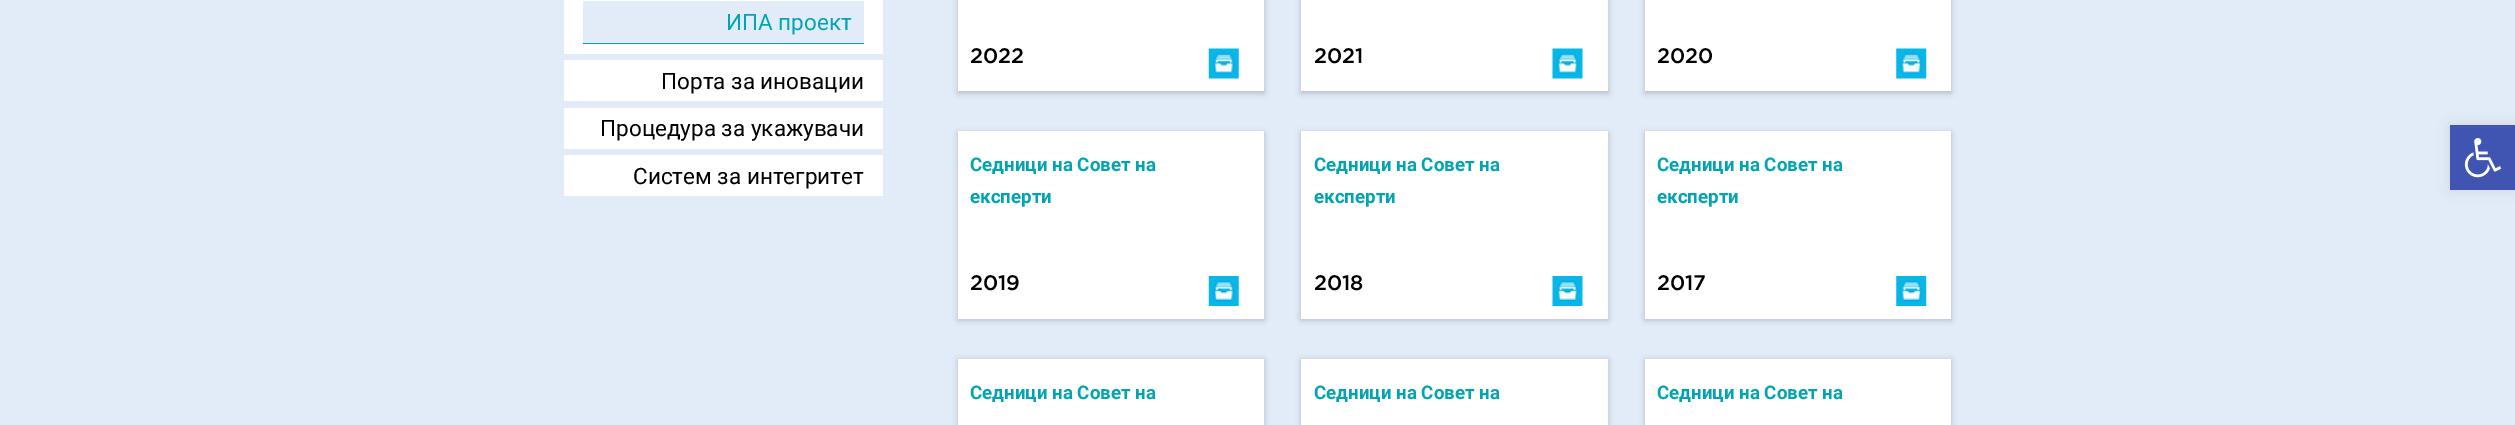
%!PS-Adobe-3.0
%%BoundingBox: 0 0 2515 425
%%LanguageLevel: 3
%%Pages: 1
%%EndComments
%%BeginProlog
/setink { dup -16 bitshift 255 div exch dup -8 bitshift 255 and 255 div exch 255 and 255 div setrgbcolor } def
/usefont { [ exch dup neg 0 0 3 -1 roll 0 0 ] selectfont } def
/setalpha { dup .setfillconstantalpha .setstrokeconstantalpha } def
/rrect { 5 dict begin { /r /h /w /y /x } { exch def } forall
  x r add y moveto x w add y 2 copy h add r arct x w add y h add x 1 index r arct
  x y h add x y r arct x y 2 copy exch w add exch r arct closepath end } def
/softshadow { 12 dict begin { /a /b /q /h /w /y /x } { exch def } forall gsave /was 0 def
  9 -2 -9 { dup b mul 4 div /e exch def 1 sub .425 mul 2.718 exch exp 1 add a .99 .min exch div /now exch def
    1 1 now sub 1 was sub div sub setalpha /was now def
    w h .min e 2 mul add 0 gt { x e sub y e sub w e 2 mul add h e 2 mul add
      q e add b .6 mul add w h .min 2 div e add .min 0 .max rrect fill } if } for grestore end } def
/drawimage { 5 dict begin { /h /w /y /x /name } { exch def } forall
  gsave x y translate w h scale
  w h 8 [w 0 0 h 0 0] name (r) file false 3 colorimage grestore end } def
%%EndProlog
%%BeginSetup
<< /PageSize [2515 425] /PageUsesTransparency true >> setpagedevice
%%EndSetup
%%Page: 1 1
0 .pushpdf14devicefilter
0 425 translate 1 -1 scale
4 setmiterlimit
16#E2ECF8 setink
0 0 2515 425 rectfill
[
    [564 0 319 54 16#FFFFFF]
    [583 1 281 42 16#E2ECF8]
    [583 43 281 1 16#02A5B1]
] { aload pop setink rectfill } forall
/Roboto-Regular 22.5 usefont
16#00A5B1 setink
726 30 moveto (ИПА проект) show
16#FFFFFF setink
564 60 319 41 rectfill
16#000000 setink
661 89 moveto (Порта за иновации) show
16#FFFFFF setink
564 108 319 41 rectfill
16#000000 setink
600 136 moveto (Процедура за укажувачи) show
16#FFFFFF setink
564 155 319 41 rectfill
16#000000 setink
633 184 moveto (Систем за интегритет) show
16#AFB7C1 setink
958 -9 306 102 0 3 1 softshadow
16#FFFFFF setink
958 0 306 91 rectfill
/Gotham-Medium 21 usefont
16#000000 setink
970 63 moveto (2022) show
(img1.raw) 1208 48 31 31 drawimage
16#AFB7C1 setink
1301 -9 307 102 0 3 1 softshadow
16#FFFFFF setink
1301 0 307 91 rectfill
16#000000 setink
1314 63 moveto (2021) show
(img2.raw) 1552 48 31 31 drawimage
16#AFB7C1 setink
1645 -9 306 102 0 3 1 softshadow
16#FFFFFF setink
1645 0 306 91 rectfill
16#000000 setink
1657 63 moveto (2020) show
(img3.raw) 1896 48 31 31 drawimage
16#AFB7C1 setink
958 133 306 187 0 3 1 softshadow
16#FFFFFF setink
958 131 306 188 rectfill
/Roboto-Bold 18.75 usefont
16#00A5B1 setink
970 171 moveto (Седници на Совет на) show
970 203 moveto (експерти) show
/Gotham-Medium 21 usefont
16#000000 setink
970 290 moveto (2019) show
(img4.raw) 1208 276 31 30 drawimage
16#AFB7C1 setink
1301 133 307 187 0 3 1 softshadow
16#FFFFFF setink
1301 131 307 188 rectfill
/Roboto-Bold 18.75 usefont
16#00A5B1 setink
1314 171 moveto (Седници на Совет на) show
1314 203 moveto (експерти) show
/Gotham-Medium 21 usefont
16#000000 setink
1314 290 moveto (2018) show
(img5.raw) 1552 276 31 30 drawimage
16#AFB7C1 setink
1645 133 306 187 0 3 1 softshadow
16#FFFFFF setink
1645 131 306 188 rectfill
/Roboto-Bold 18.75 usefont
16#00A5B1 setink
1657 171 moveto (Седници на Совет на) show
1657 203 moveto (експерти) show
/Gotham-Medium 21 usefont
16#000000 setink
1657 290 moveto (2017) show
(img6.raw) 1896 276 31 30 drawimage
16#AFB7C1 setink
958 360 306 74 0 3 1 softshadow
16#FFFFFF setink
958 359 306 66 rectfill
/Roboto-Bold 18.75 usefont
16#00A5B1 setink
970 399 moveto (Седници на Совет на) show
16#AFB7C1 setink
1301 360 307 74 0 3 1 softshadow
16#FFFFFF setink
1301 359 307 66 rectfill
16#00A5B1 setink
1314 399 moveto (Седници на Совет на) show
16#AFB7C1 setink
1645 360 306 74 0 3 1 softshadow
16#FFFFFF setink
1645 359 306 66 rectfill
16#00A5B1 setink
1657 399 moveto (Седници на Совет на) show
16#000000 setink
2450 125 65 65 0 6 0.1 softshadow
16#4054B2 setink
2450 125 65 65 rectfill
(img7.raw) 2464 138 38 40 drawimage
.poppdf14devicefilter showpage
%%EOF
